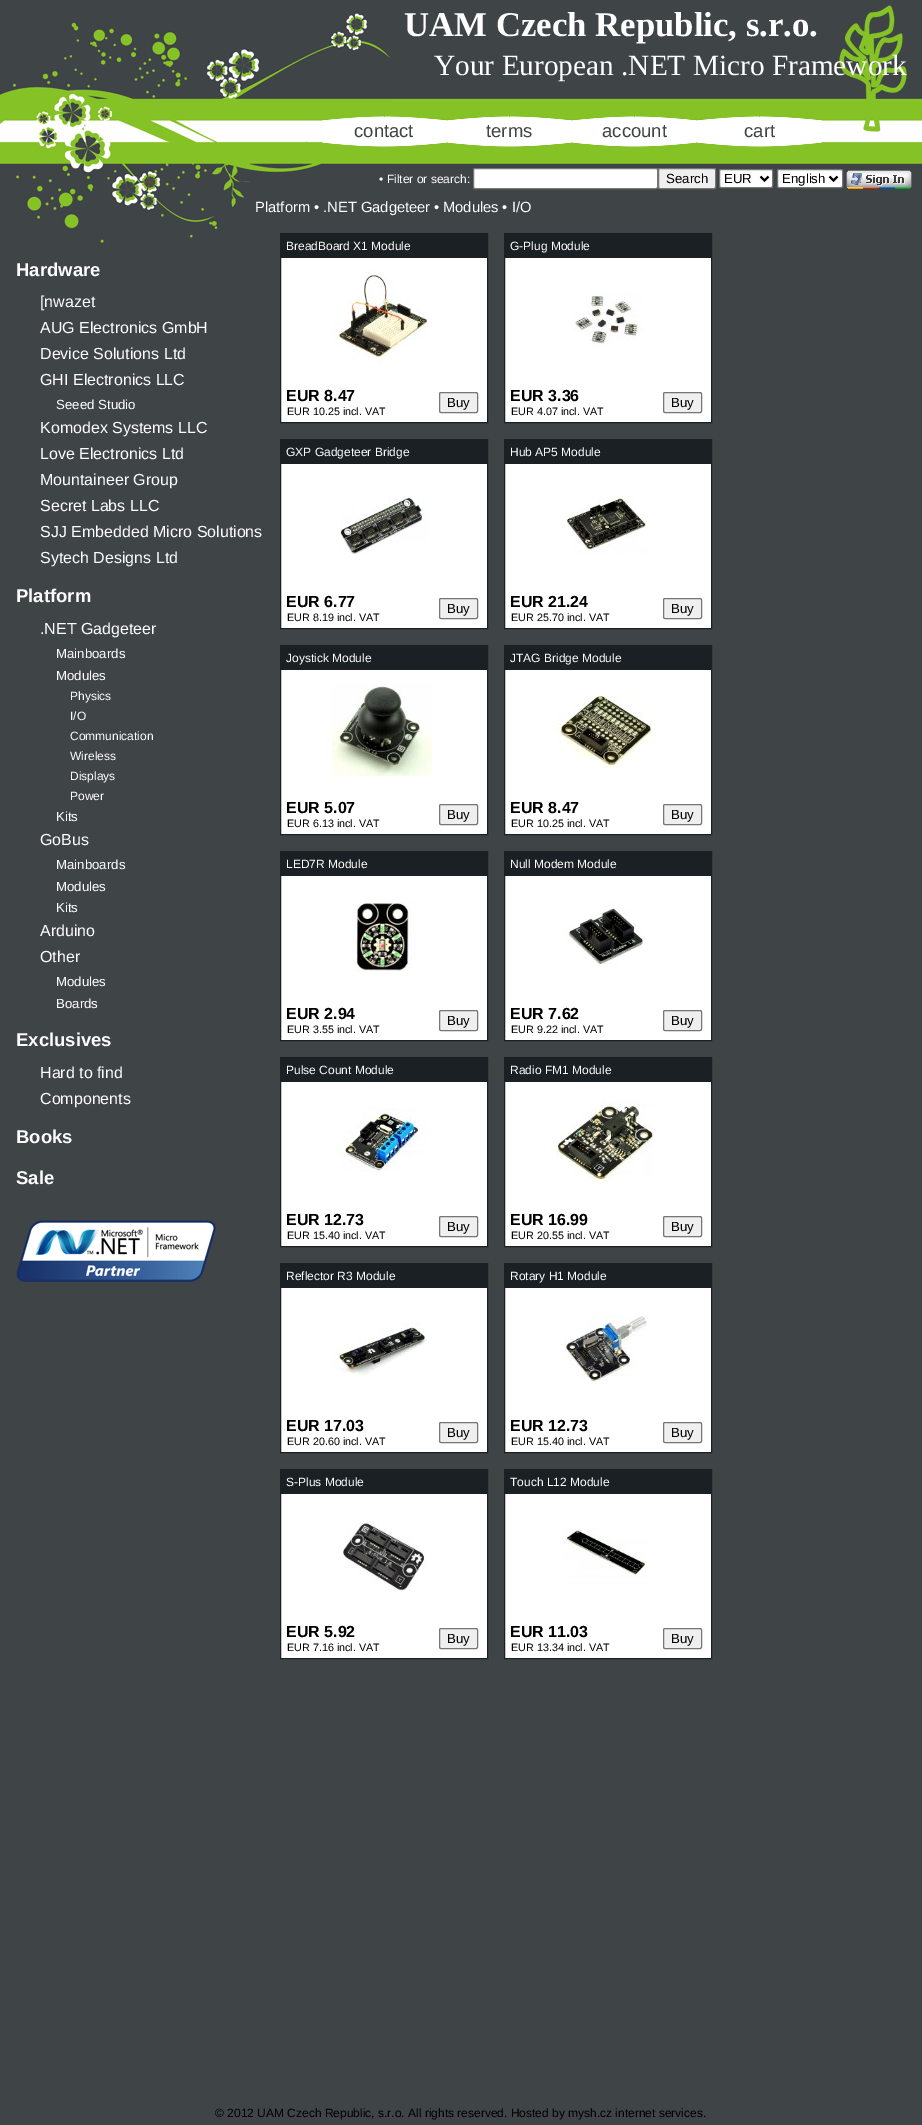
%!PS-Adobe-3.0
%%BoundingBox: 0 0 922 2125
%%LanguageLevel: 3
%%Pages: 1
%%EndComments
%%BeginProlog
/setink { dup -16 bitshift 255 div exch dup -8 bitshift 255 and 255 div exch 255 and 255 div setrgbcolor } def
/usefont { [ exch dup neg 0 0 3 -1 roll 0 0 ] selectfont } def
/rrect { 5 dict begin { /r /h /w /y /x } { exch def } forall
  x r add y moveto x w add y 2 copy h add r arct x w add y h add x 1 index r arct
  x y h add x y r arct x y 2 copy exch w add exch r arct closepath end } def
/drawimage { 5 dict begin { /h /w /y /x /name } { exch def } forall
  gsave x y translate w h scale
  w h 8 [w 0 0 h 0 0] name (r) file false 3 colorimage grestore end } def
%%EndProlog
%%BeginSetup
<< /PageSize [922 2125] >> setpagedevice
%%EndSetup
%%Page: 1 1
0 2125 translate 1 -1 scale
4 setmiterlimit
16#3F4447 setink
0 0 922 2125 rectfill
(img1.raw) 390 98 532 66 drawimage
(img2.raw) 839 5 68 127 drawimage
(img3.raw) 0 12 390 232 drawimage
/LiberationSerif-Bold 34.75 usefont
16#FFFEFF setink
404 36 moveto (UAM Czech Republic, s.r.o.) show
/LiberationSerif-Regular 29.3 usefont
434 75 moveto (Your European .NET Micro Framework) show
(img4.raw) 322 116 125 31 drawimage
/LiberationSans-Regular 18.5 usefont
16#3F4447 setink
354 137 moveto (contact) show
(img4.raw) 447 116 125 31 drawimage
486 137 moveto (terms) show
(img4.raw) 572 116 125 31 drawimage
602 137 moveto (account) show
(img4.raw) 697 116 125 31 drawimage
744 137 moveto (cart) show
/LiberationSans-Bold 18.5 usefont
16#FFFEFF setink
16 276 moveto (Hardware) show
/LiberationSans-Regular 16 usefont
[
    [([nwazet) 40 307]
    [(AUG Electronics GmbH) 40 333]
    [(Device Solutions Ltd) 40 359]
    [(GHI Electronics LLC) 40 385]
] { aload pop moveto show } forall
/LiberationSans-Regular 13.25 usefont
56 409 moveto (Seeed Studio) show
/LiberationSans-Regular 16 usefont
[
    [(Komodex Systems LLC) 40 433]
    [(Love Electronics Ltd) 40 459]
    [(Mountaineer Group) 40 485]
    [(Secret Labs LLC) 40 511]
    [(SJJ Embedded Micro Solutions) 40 537]
    [(Sytech Designs Ltd) 40 563]
] { aload pop moveto show } forall
/LiberationSans-Bold 18.5 usefont
16 602 moveto (Platform) show
/LiberationSans-Regular 16 usefont
40 634 moveto (.NET Gadgeteer) show
/LiberationSans-Regular 13.25 usefont
56 658 moveto (Mainboards) show
56 680 moveto (Modules) show
/LiberationSans-Regular 12 usefont
[
    [(Physics) 70 700]
    [(I/O) 70 720]
    [(Communication) 70 740]
    [(Wireless) 70 760]
    [(Displays) 70 780]
    [(Power) 70 800]
] { aload pop moveto show } forall
/LiberationSans-Regular 13.25 usefont
56 821 moveto (Kits) show
/LiberationSans-Regular 16 usefont
40 845 moveto (GoBus) show
/LiberationSans-Regular 13.25 usefont
[
    [(Mainboards) 56 869]
    [(Modules) 56 891]
    [(Kits) 56 912]
] { aload pop moveto show } forall
/LiberationSans-Regular 16 usefont
40 936 moveto (Arduino) show
40 962 moveto (Other) show
/LiberationSans-Regular 13.25 usefont
56 986 moveto (Modules) show
56 1008 moveto (Boards) show
/LiberationSans-Bold 18.5 usefont
16 1046 moveto (Exclusives) show
/LiberationSans-Regular 16 usefont
40 1078 moveto (Hard to find) show
40 1104 moveto (Components) show
/LiberationSans-Bold 18.5 usefont
16 1143 moveto (Books) show
16 1184 moveto (Sale) show
(img5.raw) 16 1220 200 62 drawimage
/LiberationSans-Regular 12 usefont
379 183 moveto (• Filter or search:) show
16#FFFFFF setink
473.5 168.5 184 20 1.5 rrect gsave fill grestore
16#767676 setink
stroke
16#EFEFEF setink
658.5 168.5 57 20 1.5 rrect gsave fill grestore
16#767676 setink
stroke
/LiberationSans-Regular 13.25 usefont
16#000000 setink
666 183 moveto (Search) show
16#FFFFFF setink
719.5 169.5 53 18 1.5 rrect gsave fill grestore
16#767676 setink
stroke
16#000000 setink
2 setlinewidth
760.5 176.5 moveto 764.5 180.5 lineto 768.5 176.5 lineto stroke
724 183 moveto (EUR) show
16#FFFFFF setink
777.5 169.5 65 18 1.5 rrect gsave fill grestore
16#767676 setink
1 setlinewidth
stroke
16#000000 setink
2 setlinewidth
829.5 176.5 moveto 833.5 180.5 lineto 837.5 176.5 lineto stroke
782 183 moveto (English) show
(img6.raw) 846 170 66 19 drawimage
/LiberationSans-Regular 14.75 usefont
16#FFFEFF setink
[
    [(Platform) 255 212]
    [(•) 314 212]
    [(.NET Gadgeteer) 323 212]
    [(•) 434 212]
    [(Modules) 443 212]
    [(•) 502 212]
    [(I/O) 512 212]
] { aload pop moveto show } forall
16#FFFFFF setink
281 258 206 164 rectfill
16#1A2024 setink
1 setlinewidth
280.5 233.5 207 189 rectstroke
281 234 206 24 rectfill
/LiberationSans-Regular 12 usefont
16#FFFEFF setink
286 250 moveto (BreadBoard X1 Module) show
(img7.raw) 332 270 96 94 drawimage
/LiberationSans-Bold 16 usefont
16#000000 setink
286 401 moveto (EUR 8.47) show
16#EFEFEF setink
439.5 392.5 38 20 1.5 rrect gsave fill grestore
16#767676 setink
stroke
/LiberationSans-Regular 13.25 usefont
16#000000 setink
447 407 moveto (Buy) show
/LiberationSans-Regular 10.75 usefont
287 415 moveto (EUR 10.25 incl. VAT) show
16#FFFFFF setink
505 258 206 164 rectfill
16#1A2024 setink
504.5 233.5 207 189 rectstroke
505 234 206 24 rectfill
/LiberationSans-Regular 12 usefont
16#FFFEFF setink
510 250 moveto (G-Plug Module) show
(img8.raw) 573 292 71 55 drawimage
/LiberationSans-Bold 16 usefont
16#000000 setink
510 401 moveto (EUR 3.36) show
16#EFEFEF setink
663.5 392.5 38 20 1.5 rrect gsave fill grestore
16#767676 setink
stroke
/LiberationSans-Regular 13.25 usefont
16#000000 setink
671 407 moveto (Buy) show
/LiberationSans-Regular 10.75 usefont
511 415 moveto (EUR 4.07 incl. VAT) show
16#FFFFFF setink
281 464 206 164 rectfill
16#1A2024 setink
280.5 439.5 207 189 rectstroke
281 440 206 24 rectfill
/LiberationSans-Regular 12 usefont
16#FFFEFF setink
286 456 moveto (GXP Gadgeteer Bridge) show
(img9.raw) 340 498 88 56 drawimage
/LiberationSans-Bold 16 usefont
16#000000 setink
286 607 moveto (EUR 6.77) show
16#EFEFEF setink
439.5 598.5 38 20 1.5 rrect gsave fill grestore
16#767676 setink
stroke
/LiberationSans-Regular 13.25 usefont
16#000000 setink
447 613 moveto (Buy) show
/LiberationSans-Regular 10.75 usefont
287 621 moveto (EUR 8.19 incl. VAT) show
16#FFFFFF setink
505 464 206 164 rectfill
16#1A2024 setink
504.5 439.5 207 189 rectstroke
505 440 206 24 rectfill
/LiberationSans-Regular 12 usefont
16#FFFEFF setink
510 456 moveto (Hub AP5 Module) show
(img10.raw) 564 498 86 56 drawimage
/LiberationSans-Bold 16 usefont
16#000000 setink
510 607 moveto (EUR 21.24) show
16#EFEFEF setink
663.5 598.5 38 20 1.5 rrect gsave fill grestore
16#767676 setink
stroke
/LiberationSans-Regular 13.25 usefont
16#000000 setink
671 613 moveto (Buy) show
/LiberationSans-Regular 10.75 usefont
511 621 moveto (EUR 25.70 incl. VAT) show
16#FFFFFF setink
281 670 206 164 rectfill
16#1A2024 setink
280.5 645.5 207 189 rectstroke
281 646 206 24 rectfill
/LiberationSans-Regular 12 usefont
16#FFFEFF setink
286 662 moveto (Joystick Module) show
(img11.raw) 332 684 100 93 drawimage
/LiberationSans-Bold 16 usefont
16#000000 setink
286 813 moveto (EUR 5.07) show
16#EFEFEF setink
439.5 804.5 38 20 1.5 rrect gsave fill grestore
16#767676 setink
stroke
/LiberationSans-Regular 13.25 usefont
16#000000 setink
447 819 moveto (Buy) show
/LiberationSans-Regular 10.75 usefont
287 827 moveto (EUR 6.13 incl. VAT) show
16#FFFFFF setink
505 670 206 164 rectfill
16#1A2024 setink
504.5 645.5 207 189 rectstroke
505 646 206 24 rectfill
/LiberationSans-Regular 12 usefont
16#FFFEFF setink
510 662 moveto (JTAG Bridge Module) show
(img12.raw) 556 695 97 76 drawimage
/LiberationSans-Bold 16 usefont
16#000000 setink
510 813 moveto (EUR 8.47) show
16#EFEFEF setink
663.5 804.5 38 20 1.5 rrect gsave fill grestore
16#767676 setink
stroke
/LiberationSans-Regular 13.25 usefont
16#000000 setink
671 819 moveto (Buy) show
/LiberationSans-Regular 10.75 usefont
511 827 moveto (EUR 10.25 incl. VAT) show
16#FFFFFF setink
281 876 206 164 rectfill
16#1A2024 setink
280.5 851.5 207 189 rectstroke
281 852 206 24 rectfill
/LiberationSans-Regular 12 usefont
16#FFFEFF setink
286 868 moveto (LED7R Module) show
(img13.raw) 356 902 56 71 drawimage
/LiberationSans-Bold 16 usefont
16#000000 setink
286 1019 moveto (EUR 2.94) show
16#EFEFEF setink
439.5 1010.5 38 20 1.5 rrect gsave fill grestore
16#767676 setink
stroke
/LiberationSans-Regular 13.25 usefont
16#000000 setink
447 1025 moveto (Buy) show
/LiberationSans-Regular 10.75 usefont
287 1033 moveto (EUR 3.55 incl. VAT) show
16#FFFFFF setink
505 876 206 164 rectfill
16#1A2024 setink
504.5 851.5 207 189 rectstroke
505 852 206 24 rectfill
/LiberationSans-Regular 12 usefont
16#FFFEFF setink
510 868 moveto (Null Modem Module) show
(img14.raw) 564 902 80 64 drawimage
/LiberationSans-Bold 16 usefont
16#000000 setink
510 1019 moveto (EUR 7.62) show
16#EFEFEF setink
663.5 1010.5 38 20 1.5 rrect gsave fill grestore
16#767676 setink
stroke
/LiberationSans-Regular 13.25 usefont
16#000000 setink
671 1025 moveto (Buy) show
/LiberationSans-Regular 10.75 usefont
511 1033 moveto (EUR 9.22 incl. VAT) show
16#FFFFFF setink
281 1082 206 164 rectfill
16#1A2024 setink
280.5 1057.5 207 189 rectstroke
281 1058 206 24 rectfill
/LiberationSans-Regular 12 usefont
16#FFFEFF setink
286 1074 moveto (Pulse Count Module) show
(img15.raw) 340 1107 88 65 drawimage
/LiberationSans-Bold 16 usefont
16#000000 setink
286 1225 moveto (EUR 12.73) show
16#EFEFEF setink
439.5 1216.5 38 20 1.5 rrect gsave fill grestore
16#767676 setink
stroke
/LiberationSans-Regular 13.25 usefont
16#000000 setink
447 1231 moveto (Buy) show
/LiberationSans-Regular 10.75 usefont
287 1239 moveto (EUR 15.40 incl. VAT) show
16#FFFFFF setink
505 1082 206 164 rectfill
16#1A2024 setink
504.5 1057.5 207 189 rectstroke
505 1058 206 24 rectfill
/LiberationSans-Regular 12 usefont
16#FFFEFF setink
510 1074 moveto (Radio FM1 Module) show
(img16.raw) 556 1100 97 88 drawimage
/LiberationSans-Bold 16 usefont
16#000000 setink
510 1225 moveto (EUR 16.99) show
16#EFEFEF setink
663.5 1216.5 38 20 1.5 rrect gsave fill grestore
16#767676 setink
stroke
/LiberationSans-Regular 13.25 usefont
16#000000 setink
671 1231 moveto (Buy) show
/LiberationSans-Regular 10.75 usefont
511 1239 moveto (EUR 20.55 incl. VAT) show
16#FFFFFF setink
281 1288 206 164 rectfill
16#1A2024 setink
280.5 1263.5 207 189 rectstroke
281 1264 206 24 rectfill
/LiberationSans-Regular 12 usefont
16#FFFEFF setink
286 1280 moveto (Reflector R3 Module) show
(img17.raw) 332 1322 96 55 drawimage
/LiberationSans-Bold 16 usefont
16#000000 setink
286 1431 moveto (EUR 17.03) show
16#EFEFEF setink
439.5 1422.5 38 20 1.5 rrect gsave fill grestore
16#767676 setink
stroke
/LiberationSans-Regular 13.25 usefont
16#000000 setink
447 1437 moveto (Buy) show
/LiberationSans-Regular 10.75 usefont
287 1445 moveto (EUR 20.60 incl. VAT) show
16#FFFFFF setink
505 1288 206 164 rectfill
16#1A2024 setink
504.5 1263.5 207 189 rectstroke
505 1264 206 24 rectfill
/LiberationSans-Regular 12 usefont
16#FFFEFF setink
510 1280 moveto (Rotary H1 Module) show
(img18.raw) 564 1314 87 71 drawimage
/LiberationSans-Bold 16 usefont
16#000000 setink
510 1431 moveto (EUR 12.73) show
16#EFEFEF setink
663.5 1422.5 38 20 1.5 rrect gsave fill grestore
16#767676 setink
stroke
/LiberationSans-Regular 13.25 usefont
16#000000 setink
671 1437 moveto (Buy) show
/LiberationSans-Regular 10.75 usefont
511 1445 moveto (EUR 15.40 incl. VAT) show
16#FFFFFF setink
281 1494 206 164 rectfill
16#1A2024 setink
280.5 1469.5 207 189 rectstroke
281 1470 206 24 rectfill
/LiberationSans-Regular 12 usefont
16#FFFEFF setink
286 1486 moveto (S-Plus Module) show
(img19.raw) 342 1520 85 71 drawimage
/LiberationSans-Bold 16 usefont
16#000000 setink
286 1637 moveto (EUR 5.92) show
16#EFEFEF setink
439.5 1628.5 38 20 1.5 rrect gsave fill grestore
16#767676 setink
stroke
/LiberationSans-Regular 13.25 usefont
16#000000 setink
447 1643 moveto (Buy) show
/LiberationSans-Regular 10.75 usefont
287 1651 moveto (EUR 7.16 incl. VAT) show
16#FFFFFF setink
505 1494 206 164 rectfill
16#1A2024 setink
504.5 1469.5 207 189 rectstroke
505 1470 206 24 rectfill
/LiberationSans-Regular 12 usefont
16#FFFEFF setink
510 1486 moveto (Touch L12 Module) show
(img20.raw) 564 1528 86 56 drawimage
/LiberationSans-Bold 16 usefont
16#000000 setink
510 1637 moveto (EUR 11.03) show
16#EFEFEF setink
663.5 1628.5 38 20 1.5 rrect gsave fill grestore
16#767676 setink
stroke
/LiberationSans-Regular 13.25 usefont
16#000000 setink
671 1643 moveto (Buy) show
/LiberationSans-Regular 10.75 usefont
511 1651 moveto (EUR 13.34 incl. VAT) show
/LiberationSans-Regular 12 usefont
215 2117 moveto (© 2012 UAM Czech Republic, s.r.o. All rights reserved. Hosted by mysh.cz internet services.) show
showpage
%%EOF
